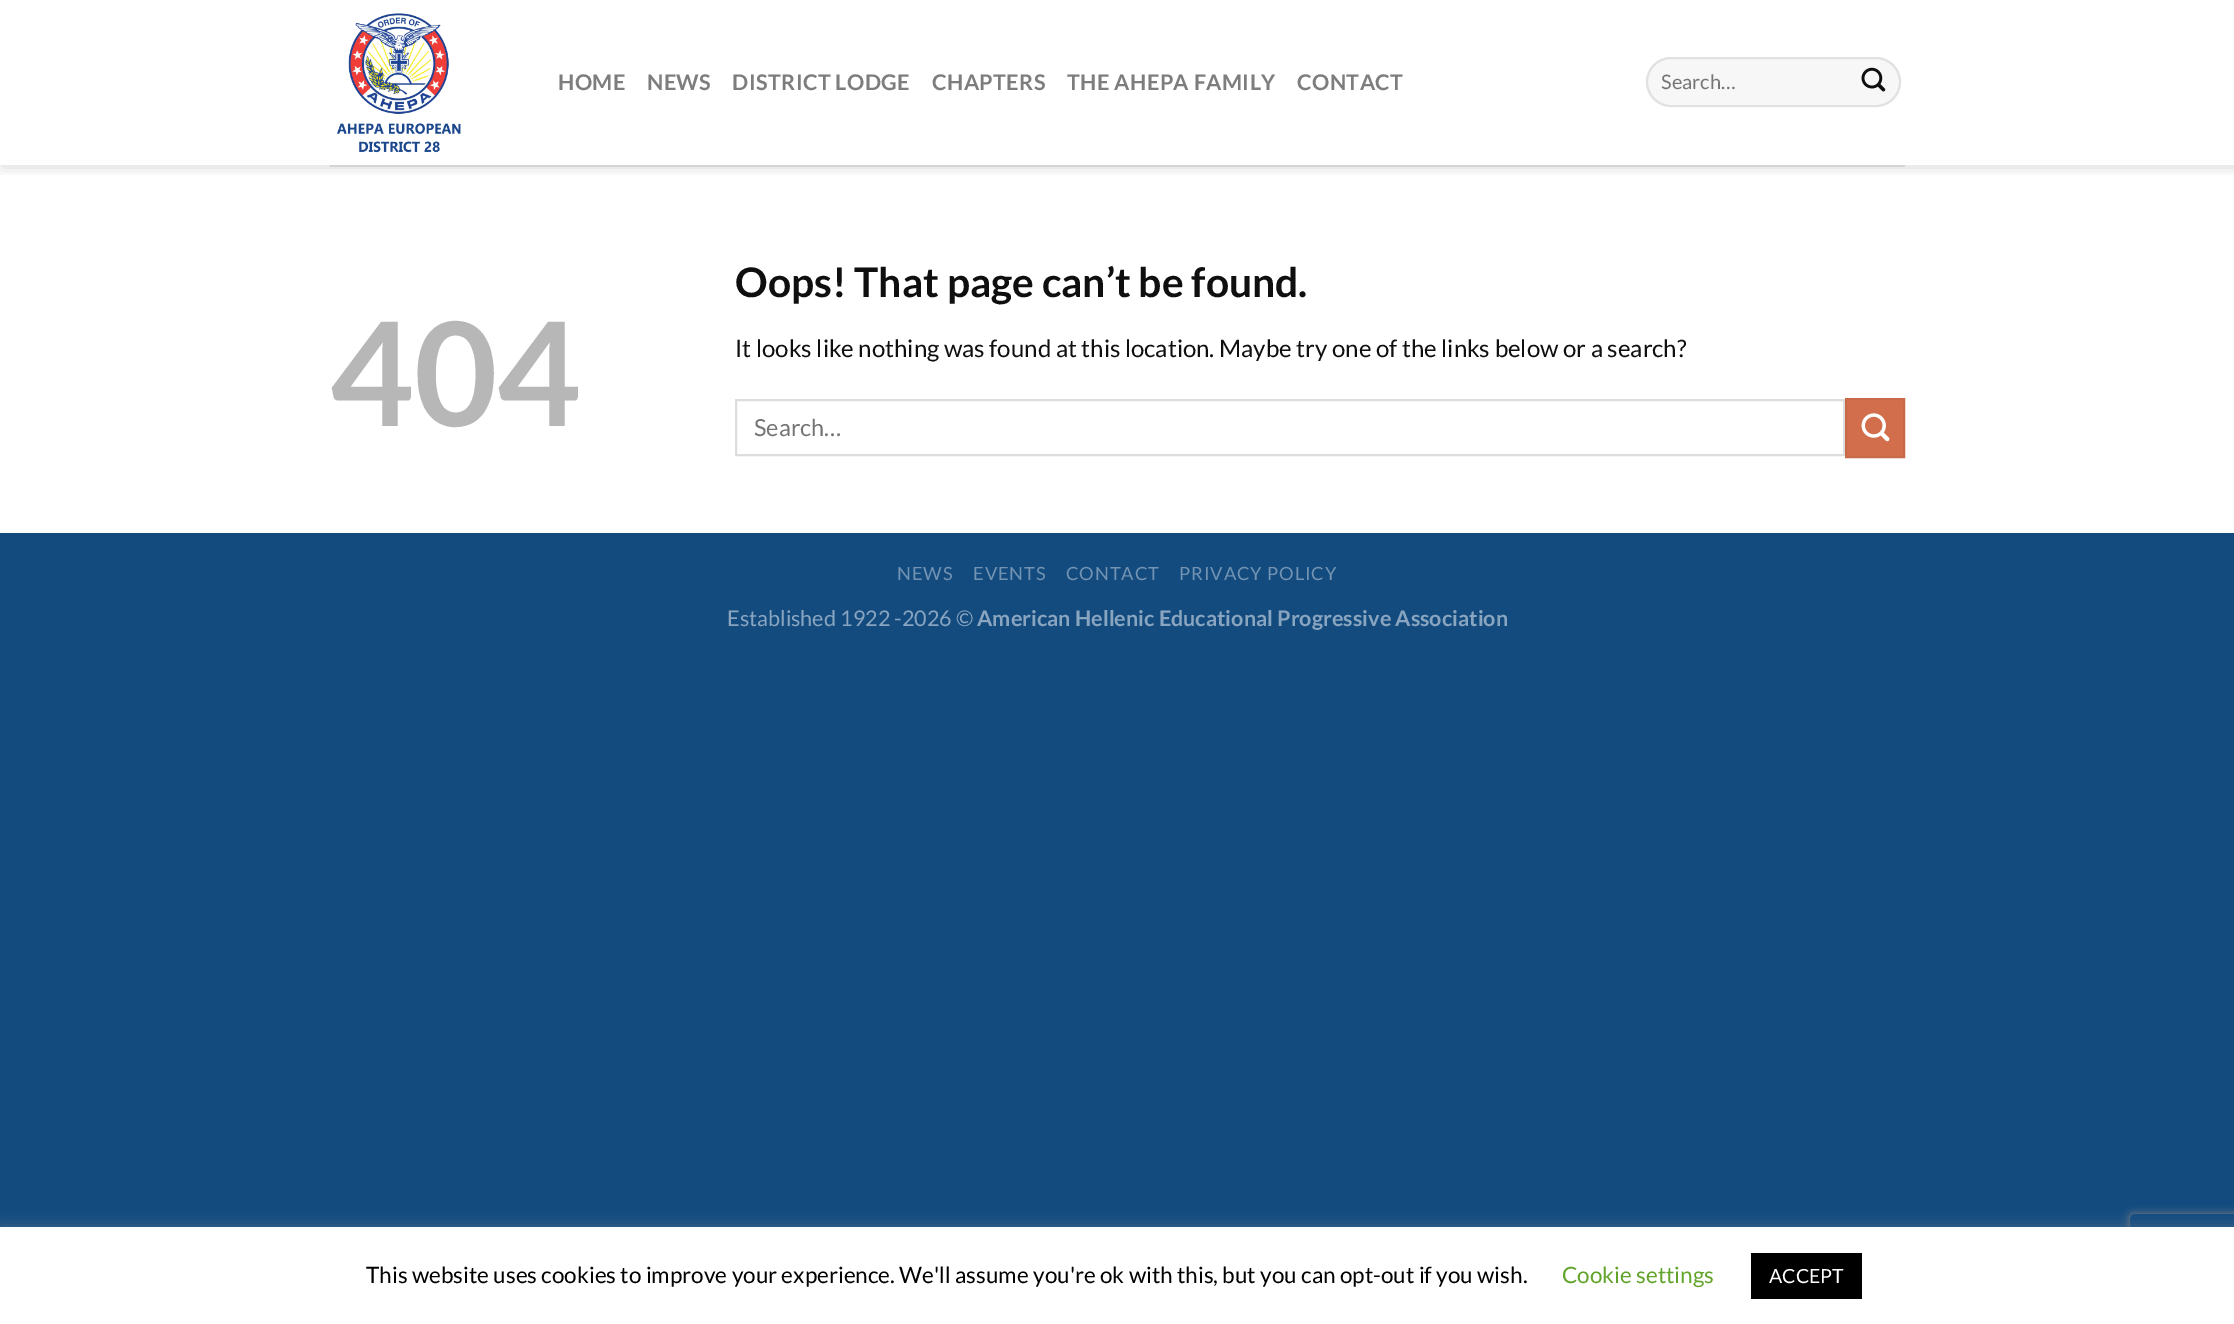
%!PS-Adobe-3.0
%%BoundingBox: 0 0 2234 1324
%%LanguageLevel: 3
%%Pages: 1
%%EndComments
%%BeginProlog
/setink { dup -16 bitshift 255 div exch dup -8 bitshift 255 and 255 div exch 255 and 255 div setrgbcolor } def
/usefont { [ exch dup neg 0 0 3 -1 roll 0 0 ] selectfont } def
/setalpha { dup .setfillconstantalpha .setstrokeconstantalpha } def
/rrect { 5 dict begin { /r /h /w /y /x } { exch def } forall
  x r add y moveto x w add y 2 copy h add r arct x w add y h add x 1 index r arct
  x y h add x y r arct x y 2 copy exch w add exch r arct closepath end } def
/softshadow { 12 dict begin { /a /b /q /h /w /y /x } { exch def } forall gsave /was 0 def
  9 -2 -9 { dup b mul 4 div /e exch def 1 sub .425 mul 2.718 exch exp 1 add a .99 .min exch div /now exch def
    1 1 now sub 1 was sub div sub setalpha /was now def
    w h .min e 2 mul add 0 gt { x e sub y e sub w e 2 mul add h e 2 mul add
      q e add b .6 mul add w h .min 2 div e add .min 0 .max rrect fill } if } for grestore end } def
/drawimage { 5 dict begin { /h /w /y /x /name } { exch def } forall
  gsave x y translate w h scale
  w h 8 [w 0 0 h 0 0] name (r) file false 3 colorimage grestore end } def
%%EndProlog
%%BeginSetup
<< /PageSize [2234 1324] /PageUsesTransparency true >> setpagedevice
%%EndSetup
%%Page: 1 1
0 .pushpdf14devicefilter
0 1324 translate 1 -1 scale
4 setmiterlimit
16#134B7F setink
0 0 2234 1324 rectfill
16#FFFFFF setink
0 0 2234 533 rectfill
gsave
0 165 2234 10 rectclip
16#000000 setink
2 2 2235 165 0 7.5 0.15 softshadow
grestore
(img1.raw) 337 13 124 140 drawimage
/Lato-Bold 21.6 usefont
16#7D7D7D setink
558 90 moveto 0.4 0 (HOME) ashow
647 90 moveto 0.4 0 (NEWS) ashow
732 90 moveto 0.4 0 (DISTRICT LODGE) ashow
932 90 moveto 0.4 0 (CHAPTERS) ashow
1067 90 moveto 0.4 0 (THE AHEPA FAMILY) ashow
1297 90 moveto 0.4 0 (CONTACT) ashow
16#F7F7F7 setink
1646 57 255 50 25 rrect fill
0.09 setalpha
16#000000 setink
2 setlinewidth
1647 58 253 48 24 rrect stroke
/Lato-Regular 20 usefont
1 setalpha
16#757575 setink
1661 89 moveto (Search…) show
(img2.raw) 1861 67 25 25 drawimage
16#D4D4D4 setink
330 165 1575 2 rectfill
/Lato-Bold 144 usefont
16#B7B7B7 setink
330 426 moveto (404) show
/Lato-Bold 40.75 usefont
16#0F0F0F setink
735 297 moveto (Oops! That page can’t be found.) show
/Lato-Regular 24 usefont
735 357 moveto (It looks like nothing was found at this location. Maybe try one of the links below or a search?) show
16#DDDDDD setink
736 400 1108 55 rectstroke
/Lato-Regular 23.5 usefont
16#757575 setink
754 436 moveto (Search…) show
16#D26E4B setink
1846 399 moveto 1904 399 lineto 1904 457 lineto 1846 457 lineto closepath gsave fill grestore
16#C86947 setink
stroke
(img3.raw) 1861 413 29 29 drawimage
/Lato-Regular 18.25 usefont
16#7293B2 setink
897 580 moveto 0.9 0 (NEWS) ashow
973 580 moveto 0.9 0 (EVENTS) ashow
1066 580 moveto 0.9 0 (CONTACT) ashow
1179 580 moveto 0.9 0 (PRIVACY POLICY) ashow
/Lato-Regular 21.6 usefont
16#89A5BF setink
727 626 moveto (Established 1922 -2026 ©) show
/Lato-Bold 21.6 usefont
977 626 moveto (American Hellenic Educational Progressive Association) show
16#ACABAB setink
0 1226 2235 97 0 7.5 0.3 softshadow
gsave
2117 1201 moveto 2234 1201 lineto 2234 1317 lineto 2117 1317 lineto closepath 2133 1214 moveto 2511 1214 lineto 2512.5 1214 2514 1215.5 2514 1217 curveto 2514 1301 lineto 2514 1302.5 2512.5 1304 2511 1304 curveto 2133 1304 lineto 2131.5 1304 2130 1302.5 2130 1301 curveto 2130 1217 lineto 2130 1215.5 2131.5 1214 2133 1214 curveto closepath eoclip newpath
16#808080 setink
2130 1214 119 90 3 4 1 softshadow
grestore
16#FFFFFF setink
0 1227 2234 97 rectfill
/Lato-Regular 22.5 usefont
16#000000 setink
366 1283 moveto (This website uses cookies to improve your experience. We'll assume you're ok with this, but you can opt-out if you wish.) show
16#62A329 setink
1562 1283 moveto (Cookie settings) show
16#000000 setink
1751 1253 111 46 rectfill
/Lato-Regular 19.5 usefont
16#FFFFFF setink
1769 1283 moveto (ACCEPT) show
.poppdf14devicefilter showpage
%%EOF
